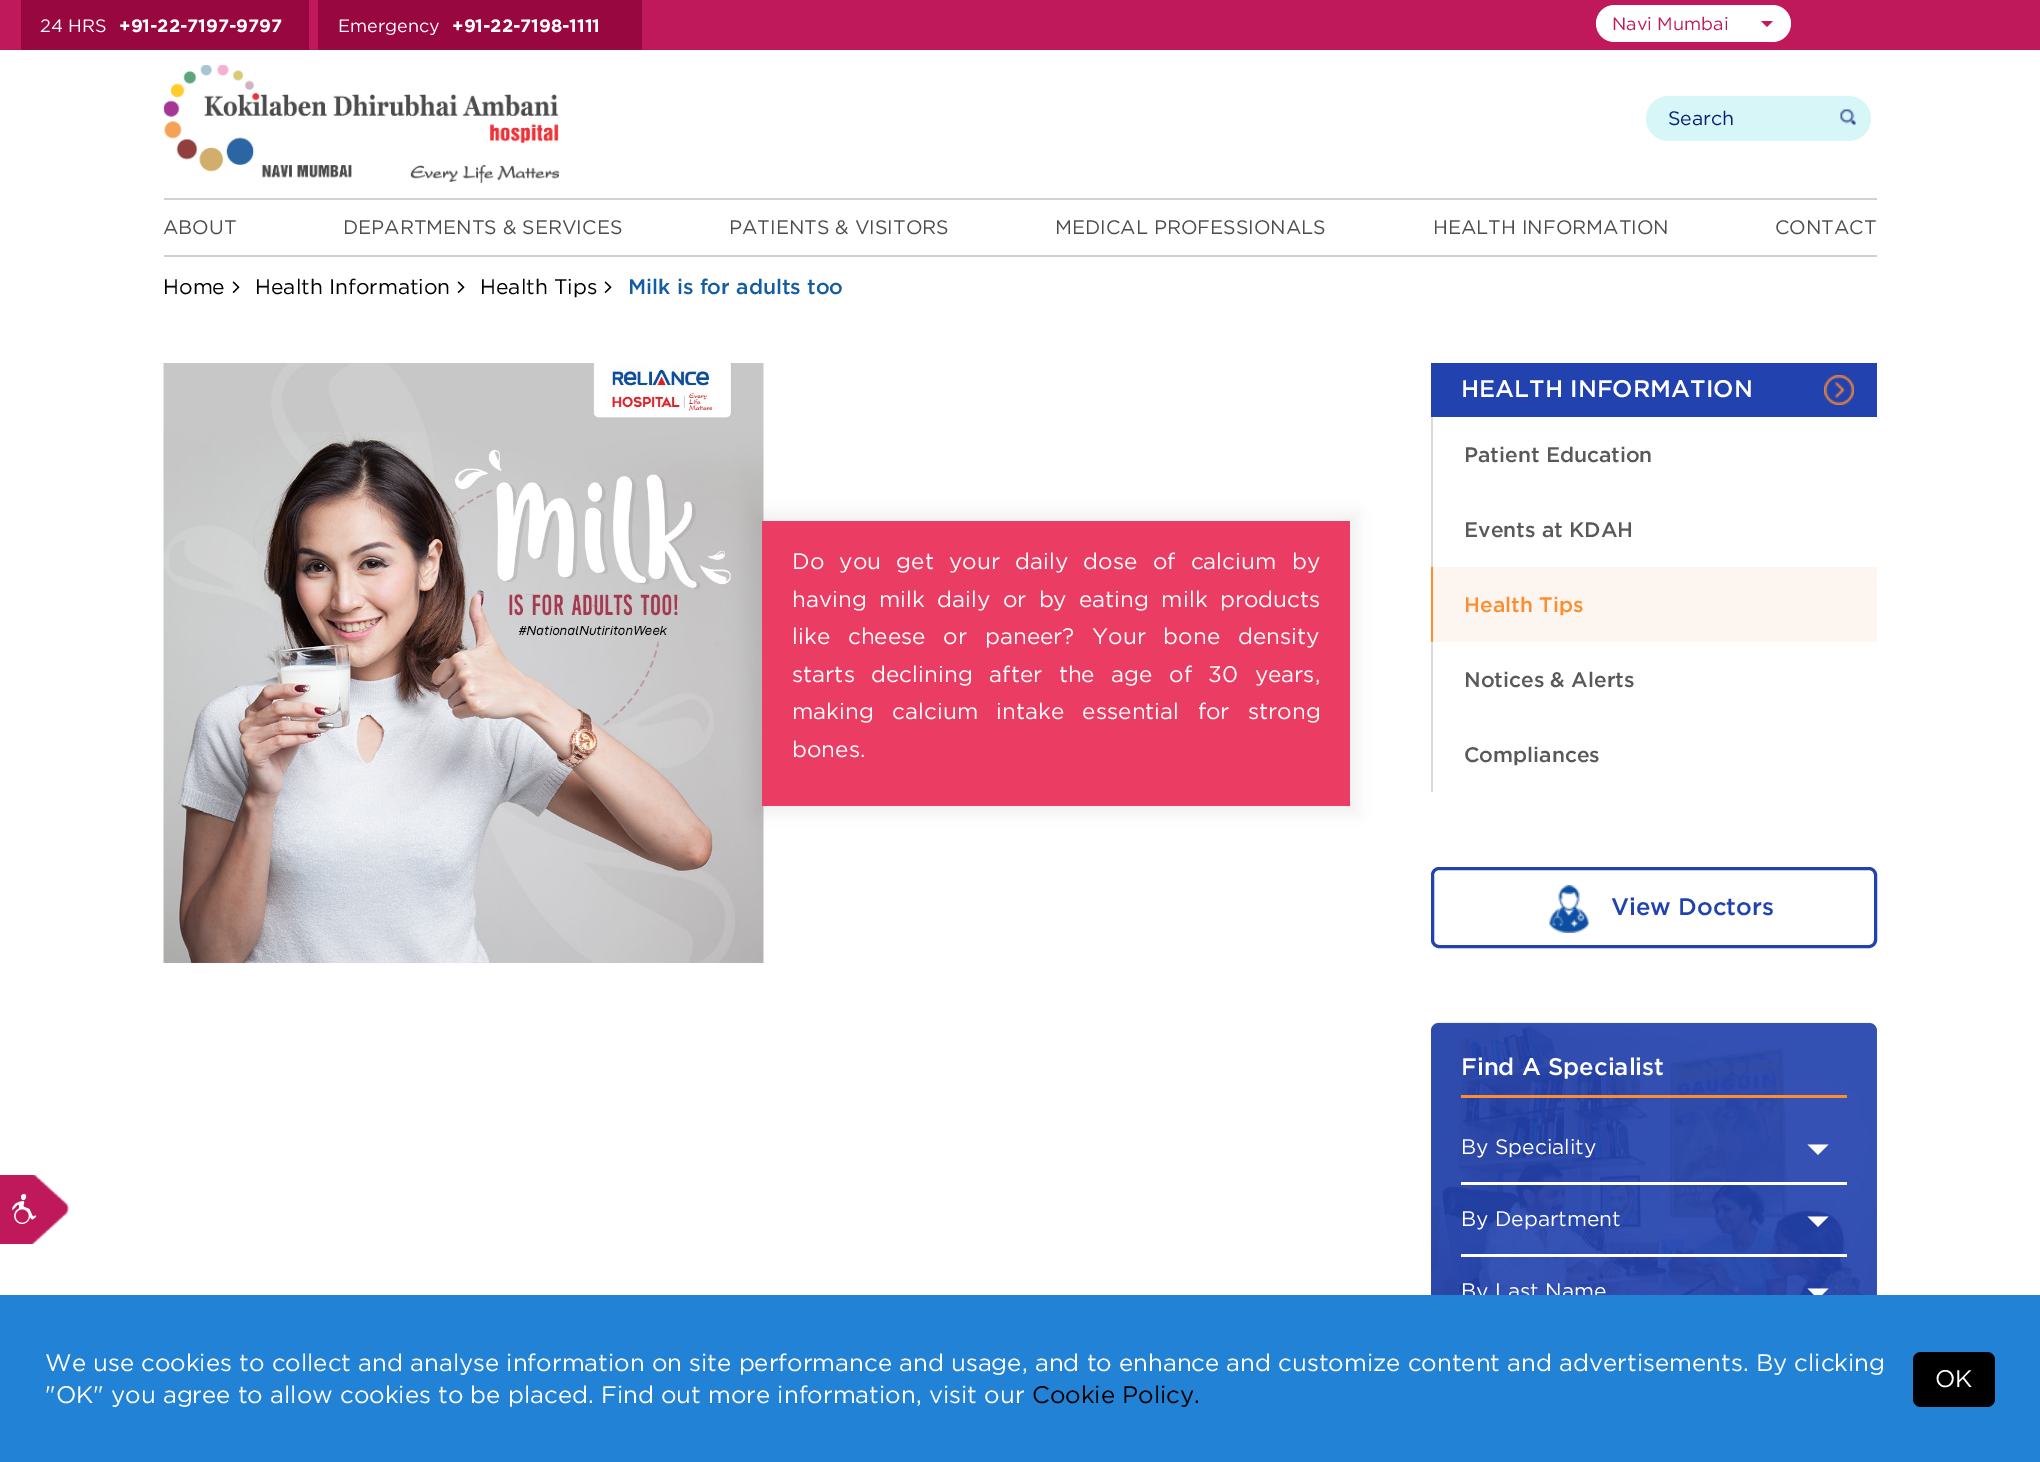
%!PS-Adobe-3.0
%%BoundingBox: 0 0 2040 1462
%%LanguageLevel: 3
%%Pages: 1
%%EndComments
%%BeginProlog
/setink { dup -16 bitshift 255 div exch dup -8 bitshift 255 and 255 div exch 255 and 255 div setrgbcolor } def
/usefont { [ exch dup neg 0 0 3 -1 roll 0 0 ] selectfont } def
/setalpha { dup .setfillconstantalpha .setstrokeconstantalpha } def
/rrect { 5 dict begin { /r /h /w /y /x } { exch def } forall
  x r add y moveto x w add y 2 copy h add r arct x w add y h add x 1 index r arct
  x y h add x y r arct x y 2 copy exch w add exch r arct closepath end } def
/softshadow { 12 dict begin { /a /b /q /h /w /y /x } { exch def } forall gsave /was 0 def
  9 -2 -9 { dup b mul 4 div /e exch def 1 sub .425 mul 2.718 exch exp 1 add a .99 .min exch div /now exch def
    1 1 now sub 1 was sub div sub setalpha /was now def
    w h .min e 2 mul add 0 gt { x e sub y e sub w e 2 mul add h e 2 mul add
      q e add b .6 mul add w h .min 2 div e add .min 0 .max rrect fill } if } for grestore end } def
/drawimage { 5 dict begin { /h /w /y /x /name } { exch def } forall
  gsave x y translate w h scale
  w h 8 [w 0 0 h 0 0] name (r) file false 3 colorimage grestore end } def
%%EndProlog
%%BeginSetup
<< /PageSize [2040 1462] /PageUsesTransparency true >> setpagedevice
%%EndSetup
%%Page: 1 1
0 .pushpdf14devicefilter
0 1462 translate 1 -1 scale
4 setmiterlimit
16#FFFFFF setink
0 0 2040 1462 rectfill
16#C0195B setink
0 0 2040 50 rectfill
16#980740 setink
21 0 288 50 rectfill
/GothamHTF-Regular 18 usefont
16#FFFFFF setink
40 32 moveto (24 HRS) show
/GothamHTF-Bold 18 usefont
119 32 moveto (+91-22-7197-9797) show
16#980740 setink
318 0 324 50 rectfill
/GothamHTF-Regular 18 usefont
16#FFFFFF setink
338 32 moveto (Emergency) show
/GothamHTF-Bold 18 usefont
452 32 moveto (+91-22-7198-1111) show
1596 5 195 37 18.5 rrect fill
/GothamHTF-Regular 18 usefont
16#C0195B setink
1612 30 moveto (Navi Mumbai) show
1761 21 moveto 1773 21 lineto 1767 27 lineto closepath fill
(img1.raw) 164 65 396 118 drawimage
16#D7F6F8 setink
1646 96 225 45 22.5 rrect fill
/GothamHTF-Regular 19.5 usefont
16#082178 setink
1668 125 moveto (Search) show
(img2.raw) 1840 109 16 16 drawimage
16#D2D0D0 setink
164 198 1713 2 rectfill
16#4C4C4C setink
[
    [(ABOUT) 163 234]
    [(DEPARTMENTS & SERVICES) 343 234]
    [(PATIENTS & VISITORS) 729 234]
    [(MEDICAL PROFESSIONALS) 1055 234]
    [(HEALTH INFORMATION) 1433 234]
    [(CONTACT) 1775 234]
] { aload pop moveto show } forall
16#D2D0D0 setink
164 255 1713 2 rectfill
/GothamHTF-Regular 21 usefont
16#000000 setink
163 294 moveto (Home) show
(img3.raw) 232 281 8 12 drawimage
255 294 moveto (Health Information) show
(img3.raw) 457 281 8 12 drawimage
480 294 moveto (Health Tips) show
(img3.raw) 604 281 8 12 drawimage
/GothamHTF-Medium 21 usefont
16#145DA2 setink
628 294 moveto (Milk is for adults too) show
(img4.raw) 0 1175 69 69 drawimage
(img5.raw) 12 1194 25 30 drawimage
(img6.raw) 163 363 601 600 drawimage
16#000000 setink
753 512 606 303 0 7.5 0.06 softshadow
16#EB3D63 setink
762 521 588 285 rectfill
/GothamHTF-Regular 22.5 usefont
16#FFFFFF setink
792 569 moveto 8.5 0 32 (Do you get your daily dose of calcium by) widthshow
792 607 moveto 5.5 0 32 (having milk daily or by eating milk products) widthshow
792 644 moveto 11 0 32 (like cheese or paneer? Your bone density) widthshow
792 682 moveto 9.75 0 32 (starts declining after the age of 30 years,) widthshow
792 719 moveto 11.5 0 32 (making calcium intake essential for strong) widthshow
792 757 moveto (bones.) show
16#2242AF setink
1431 363 446 54 rectfill
(img7.raw) 1824 375 30 30 drawimage
/GothamHTF-Medium 24 usefont
16#FFFFFF setink
1461 397 moveto (HEALTH INFORMATION) show
16#DADADA setink
1431 417 2 150 rectfill
/GothamHTF-Medium 21 usefont
16#595959 setink
1464 462 moveto (Patient Education) show
1464 537 moveto (Events at KDAH) show
16#FDF5EF setink
1433 567 444 75 rectfill
16#FF8C2F setink
1431 567 2 75 rectfill
1464 612 moveto (Health Tips) show
16#DADADA setink
1431 642 2 150 rectfill
16#595959 setink
1464 687 moveto (Notices & Alerts) show
1464 762 moveto (Compliances) show
16#2242AF setink
3 setlinewidth
1432.5 868.5 443 78 6.5 rrect stroke
(img8.raw) 1549 885 40 48 drawimage
/GothamHTF-Medium 24 usefont
1611 915 moveto (View Doctors) show
(img9.raw) 1431 1022 446 273 drawimage
0.9 setalpha
1431 1023 446 344 8 rrect fill
1 setalpha
16#FF8C2F setink
1461 1095 386 3 rectfill
16#FFFFFF setink
1461 1075 moveto (Find A Specialist) show
1461 1182 386 3 rectfill
/GothamHTF-Regular 21 usefont
1461 1154 moveto (By Speciality) show
1807.5 1144.5 moveto 1828.5 1144.5 lineto 1818 1155 lineto closepath fill
1461 1254 386 3 rectfill
1461 1226 moveto (By Department) show
1807.5 1216.5 moveto 1828.5 1216.5 lineto 1818 1227 lineto closepath fill
1461 1298 moveto (By Last Name) show
1807.5 1288.5 moveto 1828.5 1288.5 lineto 1818 1299 lineto closepath fill
16#2282D6 setink
0 1295 2040 167 rectfill
/GothamHTF-Regular 24 usefont
16#FFFFFF setink
45 1371 moveto (We use cookies to collect and analyse information on site performance and usage, and to enhance and customize content and advertisements. By clicking) show
45 1403 moveto ("OK" you agree to allow cookies to be placed. Find out more information, visit our) show
16#000000 setink
1032 1403 moveto (Cookie Policy.) show
1913 1352 82 55 8 rrect fill
16#FFFFFF setink
1935 1387 moveto (OK) show
.poppdf14devicefilter showpage
%%EOF
